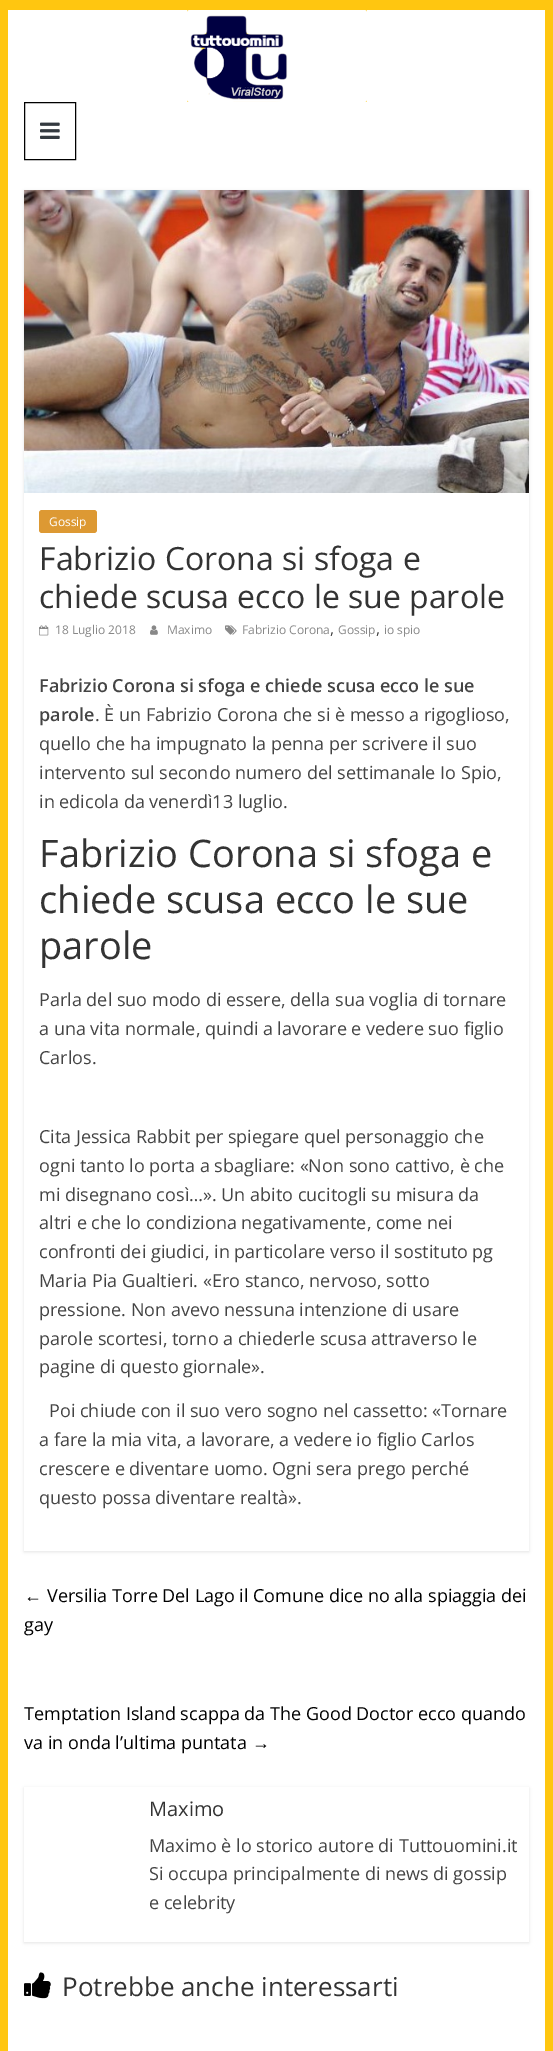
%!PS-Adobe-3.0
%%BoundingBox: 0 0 553 2051
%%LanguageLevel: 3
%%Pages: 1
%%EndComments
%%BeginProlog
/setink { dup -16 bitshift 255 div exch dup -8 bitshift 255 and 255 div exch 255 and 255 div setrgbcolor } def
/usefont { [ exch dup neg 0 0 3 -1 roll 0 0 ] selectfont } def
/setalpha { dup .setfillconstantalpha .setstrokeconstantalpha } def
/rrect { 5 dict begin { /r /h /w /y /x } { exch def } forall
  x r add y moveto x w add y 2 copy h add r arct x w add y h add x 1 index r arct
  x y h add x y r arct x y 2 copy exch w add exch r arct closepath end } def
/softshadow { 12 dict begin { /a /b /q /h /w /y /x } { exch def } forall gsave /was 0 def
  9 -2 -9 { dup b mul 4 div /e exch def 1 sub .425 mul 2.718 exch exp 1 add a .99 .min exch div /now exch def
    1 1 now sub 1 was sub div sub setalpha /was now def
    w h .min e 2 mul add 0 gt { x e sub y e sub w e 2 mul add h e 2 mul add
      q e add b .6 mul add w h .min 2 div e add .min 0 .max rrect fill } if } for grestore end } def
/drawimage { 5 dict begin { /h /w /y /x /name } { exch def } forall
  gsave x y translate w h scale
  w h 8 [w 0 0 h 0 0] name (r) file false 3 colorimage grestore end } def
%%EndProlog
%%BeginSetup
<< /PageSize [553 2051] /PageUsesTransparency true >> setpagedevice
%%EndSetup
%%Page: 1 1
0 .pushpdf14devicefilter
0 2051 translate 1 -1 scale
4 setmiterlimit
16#FFC610 setink
0 0 553 2051 rectfill
16#FFFFFF setink
8 10 537 2041 rectfill
(img1.raw) 187 10 180 92 drawimage
16#000000 setink
24.5 102.5 51 57 rectstroke
(img2.raw) 40 122 20 17 drawimage
gsave
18 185 moveto 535 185 lineto 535 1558 lineto 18 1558 lineto closepath 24 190 moveto 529 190 lineto 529 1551 lineto 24 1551 lineto closepath eoclip newpath
24 191 505 1361 0 1.5 0.1 softshadow
grestore
(img3.raw) 24 190 505 303 drawimage
16#DD9933 setink
39 510 58 23 3 rrect fill
/OpenSans-Regular 12 usefont
16#FFFFFF setink
49 526 moveto (Gossip) show
/OpenSans-Regular 32 usefont
16#333333 setink
39 570 moveto (Fabrizio Corona si sfoga e) show
39 608 moveto (chiede scusa ecco le sue parole) show
(img4.raw) 39 625 10 11 drawimage
/OpenSans-Regular 12 usefont
16#888888 setink
55 634 moveto (18 Luglio 2018) show
(img5.raw) 150 625 8 10 drawimage
167 634 moveto (Maximo) show
(img6.raw) 225 625 12 10 drawimage
242 634 moveto (Fabrizio Corona) show
/OpenSans-Regular 16 usefont
16#444444 setink
330 634 moveto (,) show
/OpenSans-Regular 12 usefont
16#888888 setink
338 634 moveto (Gossip) show
/OpenSans-Regular 16 usefont
16#444444 setink
376 634 moveto (,) show
/OpenSans-Regular 12 usefont
16#888888 setink
384 634 moveto (io spio) show
/OpenSans-SemiBold 18 usefont
16#444444 setink
39 692 moveto (Fabrizio Corona si sfoga e chiede scusa ecco le sue) show
39 721 moveto (parole) show
/OpenSans-Regular 18 usefont
[
    [(. È un Fabrizio Corona che si è messo a rigoglioso,) 95 721]
    [(quello che ha impugnato la penna per scrivere il suo) 39 750]
    [(intervento sul secondo numero del settimanale Io Spio,) 39 779]
    [(in edicola da venerdì13 luglio.) 39 808]
] { aload pop moveto show } forall
/OpenSans-Regular 38 usefont
16#333333 setink
[
    [(Fabrizio Corona si sfoga e) 39 867]
    [(chiede scusa ecco le sue) 39 913]
    [(parole) 39 959]
] { aload pop moveto show } forall
/OpenSans-Regular 18 usefont
16#444444 setink
[
    [(Parla del suo modo di essere, della sua voglia di tornare) 39 1006]
    [(a una vita normale, quindi a lavorare e vedere suo figlio) 39 1035]
    [(Carlos.) 39 1064]
    [(Cita Jessica Rabbit per spiegare quel personaggio che) 39 1143]
    [(ogni tanto lo porta a sbagliare: «Non sono cattivo, è che) 39 1172]
    [(mi disegnano così…». Un abito cucitogli su misura da) 39 1201]
    [(altri e che lo condiziona negativamente, come nei) 39 1229]
    [(confronti dei giudici, in particolare verso il sostituto pg) 39 1258]
    [(Maria Pia Gualtieri. «Ero stanco, nervoso, sotto) 39 1287]
    [(pressione. Non avevo nessuna intenzione di usare) 39 1316]
    [(parole scortesi, torno a chiederle scusa attraverso le) 39 1345]
    [(pagine di questo giornale».) 39 1373]
    [(Poi chiude con il suo vero sogno nel cassetto: «Tornare) 49 1417]
    [(a fare la mia vita, a lavorare, a vedere io figlio Carlos) 39 1446]
    [(crescere e diventare uomo. Ogni sera prego perché) 39 1475]
    [(questo possa diventare realtà».) 39 1504]
] { aload pop moveto show } forall
/LiberationSerif-Regular 18 usefont
16#000000 setink
24 1602 moveto (←) show
/OpenSans-Regular 18 usefont
[
    [(Versilia Torre Del Lago il Comune dice no alla spiaggia dei) 47 1602]
    [(gay) 24 1631]
    [(Temptation Island scappa da The Good Doctor ecco quando) 24 1720]
    [(va in onda l’ultima puntata) 24 1749]
] { aload pop moveto show } forall
/LiberationSerif-Regular 18 usefont
252 1749 moveto (→) show
gsave
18 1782 moveto 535 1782 lineto 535 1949 lineto 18 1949 lineto closepath 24 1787 moveto 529 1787 lineto 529 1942 lineto 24 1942 lineto closepath eoclip newpath
24 1788 505 155 0 1.5 0.1 softshadow
grestore
/OpenSans-Regular 20 usefont
16#333333 setink
149 1816 moveto (Maximo) show
/OpenSans-Regular 18 usefont
16#444444 setink
[
    [(Maximo è lo storico autore di Tuttouomini.it) 149 1852]
    [(Si occupa principalmente di news di gossip) 149 1880]
    [(e celebrity) 149 1909]
] { aload pop moveto show } forall
(img7.raw) 24 1972 27 27 drawimage
/OpenSans-Regular 26 usefont
16#333333 setink
62 1996 moveto (Potrebbe anche interessarti) show
.poppdf14devicefilter showpage
%%EOF
